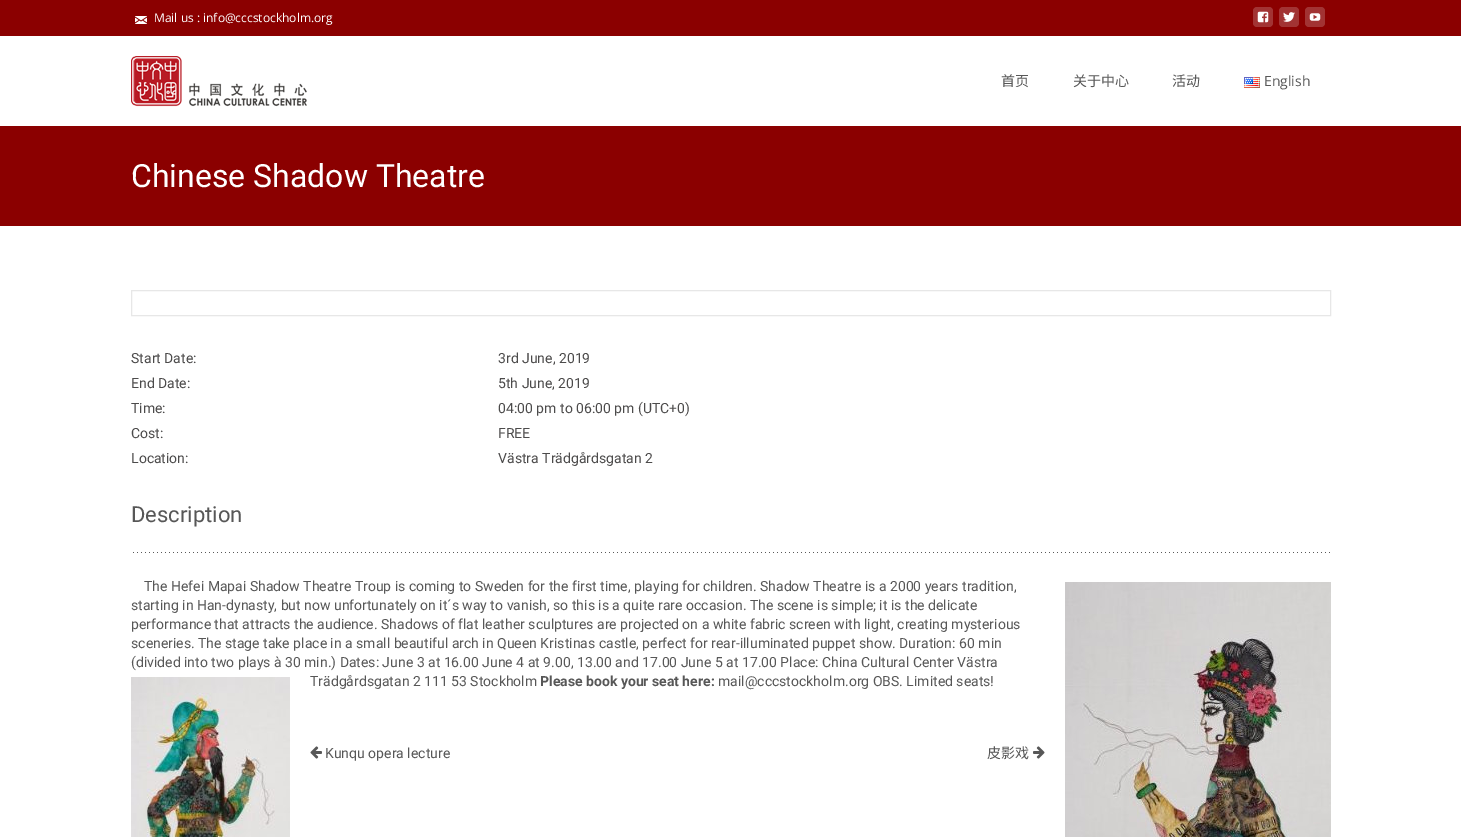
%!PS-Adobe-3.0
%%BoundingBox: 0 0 1461 837
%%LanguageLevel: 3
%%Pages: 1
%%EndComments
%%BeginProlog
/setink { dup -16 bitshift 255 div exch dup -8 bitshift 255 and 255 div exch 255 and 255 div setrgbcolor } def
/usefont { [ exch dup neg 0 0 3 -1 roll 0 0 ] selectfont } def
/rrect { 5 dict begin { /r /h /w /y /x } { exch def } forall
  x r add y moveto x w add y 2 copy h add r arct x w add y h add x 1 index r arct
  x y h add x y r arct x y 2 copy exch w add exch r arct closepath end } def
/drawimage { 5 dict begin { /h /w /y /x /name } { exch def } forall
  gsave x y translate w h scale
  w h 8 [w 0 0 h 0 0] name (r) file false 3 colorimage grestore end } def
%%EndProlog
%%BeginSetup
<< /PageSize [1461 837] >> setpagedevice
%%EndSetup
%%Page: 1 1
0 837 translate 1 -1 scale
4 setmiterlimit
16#FFFFFF setink
0 0 1461 837 rectfill
16#8B0000 setink
0 0 1461 36 rectfill
(img1.raw) 135 16 12 8 drawimage
/OpenSans-Regular 12 usefont
16#FFFFFF setink
154 22 moveto (Mail us : info@cccstockholm.org) show
16#A23333 setink
1253 7 20 20 4 rrect fill
(img2.raw) 1257 11 12 12 drawimage
1279 7 20 20 4 rrect fill
(img3.raw) 1283 12 12 10 drawimage
1305 7 20 20 4 rrect fill
(img4.raw) 1309 13 12 8 drawimage
(img5.raw) 131 56 176 51 drawimage
/NotoSansCJKSC-Regular 14 usefont
16#575757 setink
[
    [(首页) 1001 86]
    [(关于中心) 1073 86]
    [(活动) 1172 86]
] { aload pop moveto show } forall
(img6.raw) 1244 77 16 11 drawimage
/OpenSans-Regular 14 usefont
1264 86 moveto (English) show
16#8B0000 setink
0 126 1461 100 rectfill
/Roboto-Regular 32 usefont
16#FFFFFF setink
131 187 moveto (Chinese Shadow Theatre) show
16#E7E7E7 setink
131.5 290.5 1199 25 rectstroke
/Roboto-Regular 14 usefont
16#4C4B4B setink
[
    [(Start Date:) 131 363]
    [(3rd June, 2019) 498 363]
    [(End Date:) 131 388]
    [(5th June, 2019) 498 388]
    [(Time:) 131 413]
    [(04:00 pm to 06:00 pm \(UTC+0\)) 498 413]
    [(Cost:) 131 438]
    [(FREE) 498 438]
    [(Location:) 131 463]
    [(Västra Trädgårdsgatan 2) 498 463]
] { aload pop moveto show } forall
/Roboto-Regular 22 usefont
16#575757 setink
131 522 moveto (Description) show
(img7.raw) 133 552 1197 1 drawimage
/Roboto-Regular 14 usefont
144 591 moveto (The Hefei Mapai Shadow Theatre Troup is coming to Sweden for the first time, playing for children. Shadow Theatre is a 2000 years tradition,) show
(img8.raw) 1065 582 266 255 drawimage
[
    [(starting in Han-dynasty, but now unfortunately on it´s way to vanish, so this is a quite rare occasion. The scene is simple; it is the delicate) 131 610]
    [(performance that attracts the audience. Shadows of flat leather sculptures are projected on a white fabric screen with light, creating mysterious) 131 629]
    [(sceneries. The stage take place in a small beautiful arch in Queen Kristinas castle, perfect for rear-illuminated puppet show. Duration: 60 min) 131 648]
    [(\(divided into two plays à 30 min.\) Dates: June 3 at 16.00 June 4 at 9.00, 13.00 and 17.00 June 5 at 17.00 Place: China Cultural Center Västra) 131 667]
] { aload pop moveto show } forall
(img9.raw) 131 677 159 160 drawimage
310 686 moveto (Trädgårdsgatan 2 111 53 Stockholm) show
/Roboto-Bold 14 usefont
540 686 moveto (Please book your seat here:) show
/Roboto-Regular 14 usefont
718 686 moveto (mail@cccstockholm.org OBS. Limited seats!) show
(img10.raw) 310 746 12 13 drawimage
325 758 moveto (Kunqu opera lecture) show
/NotoSansCJKSC-Regular 14 usefont
987 758 moveto (皮影戏) show
(img11.raw) 1033 746 12 13 drawimage
showpage
%%EOF
